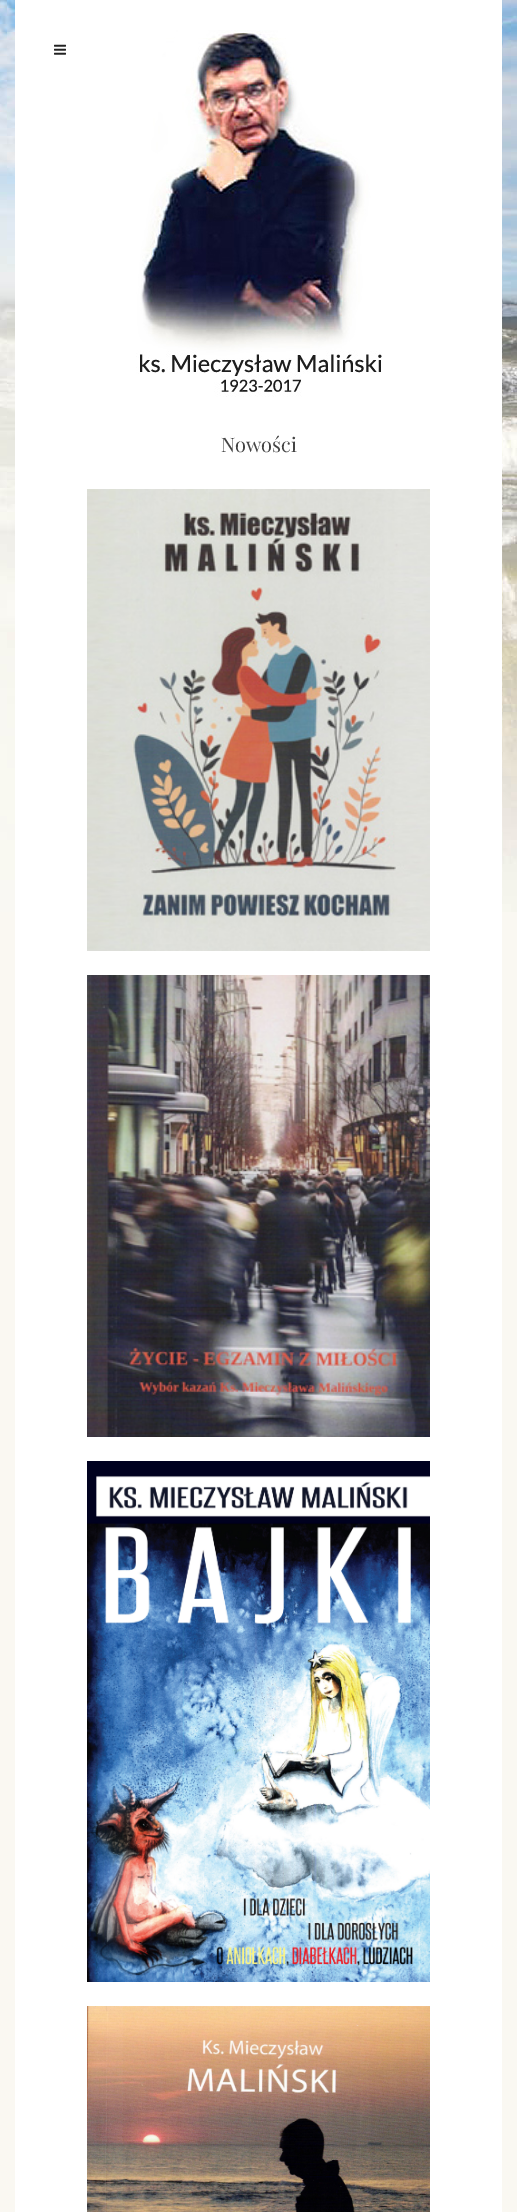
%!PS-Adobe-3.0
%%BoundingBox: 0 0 517 2212
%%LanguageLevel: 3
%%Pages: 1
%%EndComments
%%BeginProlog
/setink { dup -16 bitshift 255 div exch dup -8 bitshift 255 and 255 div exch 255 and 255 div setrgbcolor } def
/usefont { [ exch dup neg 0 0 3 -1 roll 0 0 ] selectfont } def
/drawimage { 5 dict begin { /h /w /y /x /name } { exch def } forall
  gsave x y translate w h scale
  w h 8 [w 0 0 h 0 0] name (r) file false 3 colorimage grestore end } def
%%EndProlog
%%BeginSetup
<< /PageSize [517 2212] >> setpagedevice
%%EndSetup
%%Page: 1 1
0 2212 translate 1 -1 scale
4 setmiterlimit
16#FAF8F2 setink
0 0 517 2212 rectfill
(img1.raw) 0 0 517 912 drawimage
16#FFFFFF setink
15 0 487 2212 rectfill
(img2.raw) 54 44 12 11 drawimage
(img3.raw) 136 30 246 367 drawimage
/PlayfairDisplay-Regular 20 usefont
16#444444 setink
221 452 moveto (Nowości) show
(img4.raw) 87 489 343 462 drawimage
(img5.raw) 87 975 343 462 drawimage
(img6.raw) 87 1461 343 521 drawimage
(img7.raw) 87 2006 343 206 drawimage
showpage
%%EOF
